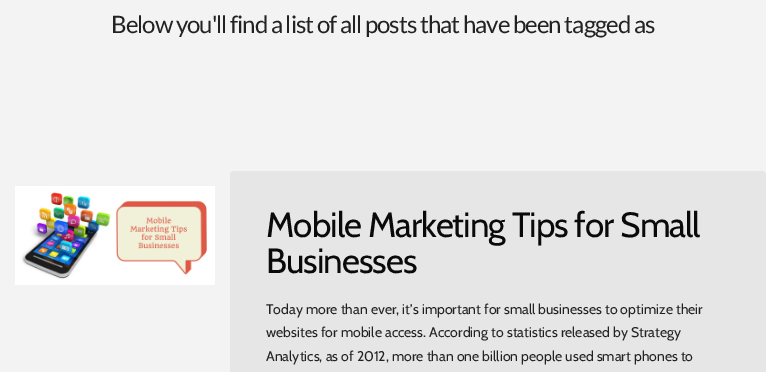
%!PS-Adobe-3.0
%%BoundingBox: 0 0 766 372
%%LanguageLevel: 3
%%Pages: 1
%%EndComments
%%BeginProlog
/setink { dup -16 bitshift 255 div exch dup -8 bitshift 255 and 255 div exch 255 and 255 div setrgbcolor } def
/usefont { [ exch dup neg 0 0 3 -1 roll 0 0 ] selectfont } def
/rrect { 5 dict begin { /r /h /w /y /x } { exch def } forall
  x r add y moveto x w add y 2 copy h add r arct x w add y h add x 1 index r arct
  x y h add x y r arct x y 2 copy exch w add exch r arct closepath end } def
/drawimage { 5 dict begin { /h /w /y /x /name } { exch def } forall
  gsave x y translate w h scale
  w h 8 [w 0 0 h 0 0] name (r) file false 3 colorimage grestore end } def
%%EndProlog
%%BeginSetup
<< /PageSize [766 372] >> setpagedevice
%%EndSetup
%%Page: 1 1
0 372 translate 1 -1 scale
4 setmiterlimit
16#F3F3F3 setink
0 0 766 372 rectfill
/Lato-Regular 24 usefont
16#222222 setink
111 33 moveto -1 0 (Below you'll find a list of all posts that have been tagged as) ashow
(img1.raw) 15 186 200 99 drawimage
16#E6E6E6 setink
230 171 536 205 4 rrect fill
/Cabin-Regular 35 usefont
16#0A0A0A setink
266 237 moveto -1 0 (Mobile Marketing Tips for Small) ashow
266 273 moveto -1 0 (Businesses) ashow
/Cabin-Regular 14 usefont
16#222222 setink
[
    [(Today more than ever, it’s important for small businesses to optimize their) 266 314]
    [(websites for mobile access. According to statistics released by Strategy) 266 337]
    [(Analytics, as of 2012, more than one billion people used smart phones to) 266 361]
] { aload pop moveto show } forall
showpage
%%EOF
